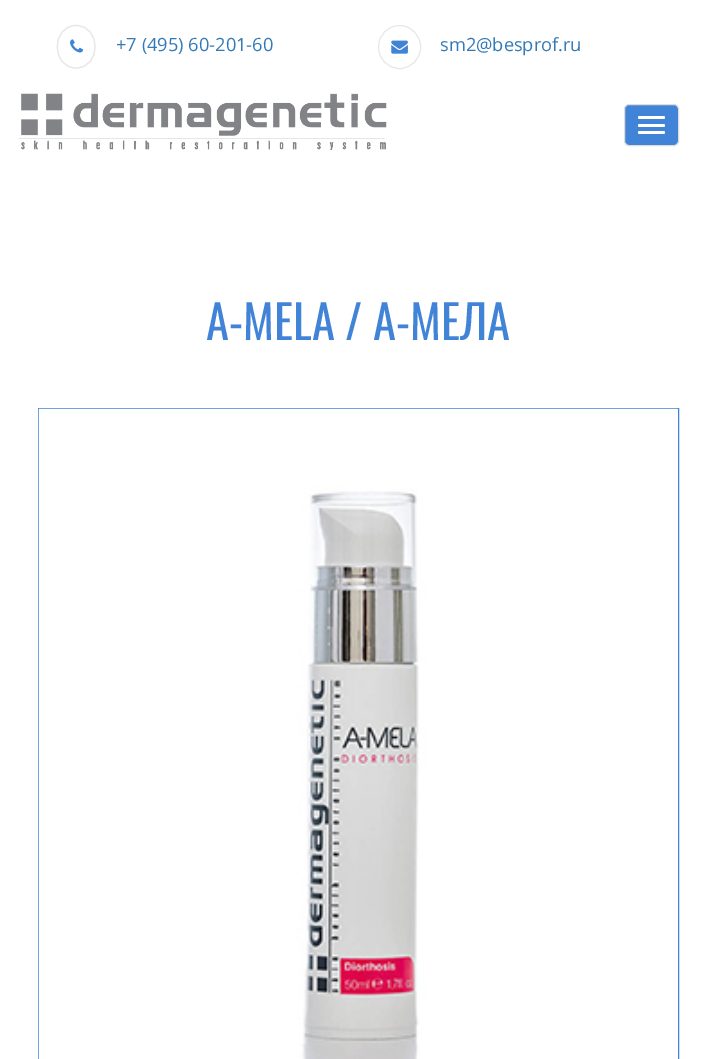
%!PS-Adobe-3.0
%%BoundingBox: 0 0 716 1059
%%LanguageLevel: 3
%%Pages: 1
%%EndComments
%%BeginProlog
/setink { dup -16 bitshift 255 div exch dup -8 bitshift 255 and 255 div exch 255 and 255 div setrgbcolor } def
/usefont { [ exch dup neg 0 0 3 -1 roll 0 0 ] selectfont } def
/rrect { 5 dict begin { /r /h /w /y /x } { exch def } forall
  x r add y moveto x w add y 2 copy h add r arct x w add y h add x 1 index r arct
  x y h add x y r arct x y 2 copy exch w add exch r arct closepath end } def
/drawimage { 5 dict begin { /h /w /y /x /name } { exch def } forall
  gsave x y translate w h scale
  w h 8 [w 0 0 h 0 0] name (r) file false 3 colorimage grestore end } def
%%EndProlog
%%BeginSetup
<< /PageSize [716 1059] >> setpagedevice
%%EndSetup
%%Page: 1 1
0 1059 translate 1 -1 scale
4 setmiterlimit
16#FFFFFF setink
0 0 716 1059 rectfill
16#E8E8E8 setink
1.2 setlinewidth
76 25.5 moveto 101.5 25.5 101.5 68 76 68 curveto 51 68 51 25.5 76 25.5 curveto closepath stroke
(img1.raw) 70 39 14 14 drawimage
/OpenSans-Regular 18.25 usefont
16#337AB7 setink
116 51 moveto (+7 \(495\) 60-201-60) show
16#E8E8E8 setink
1 setlinewidth
378.5 25.5 42 43 21 rrect stroke
(img2.raw) 391 40 17 14 drawimage
16#337AB7 setink
440 51 moveto (sm2@besprof.ru) show
(img3.raw) 18 93 369 57 drawimage
16#4183D7 setink
624.5 104.5 54 41 4.5 rrect gsave fill grestore
16#DDDDDD setink
stroke
16#FFFFFF setink
638 116 27 3 1.5 rrect fill
638 124 27 3 1.5 rrect fill
638 131 27 3 1.5 rrect fill
/Oswald-Regular 46.75 usefont
16#4183D7 setink
206 340 moveto (A-MELA / А-МЕЛА) show
38.5 408.5 640 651 rectstroke
(img4.raw) 38 408 640 651 drawimage
showpage
%%EOF
